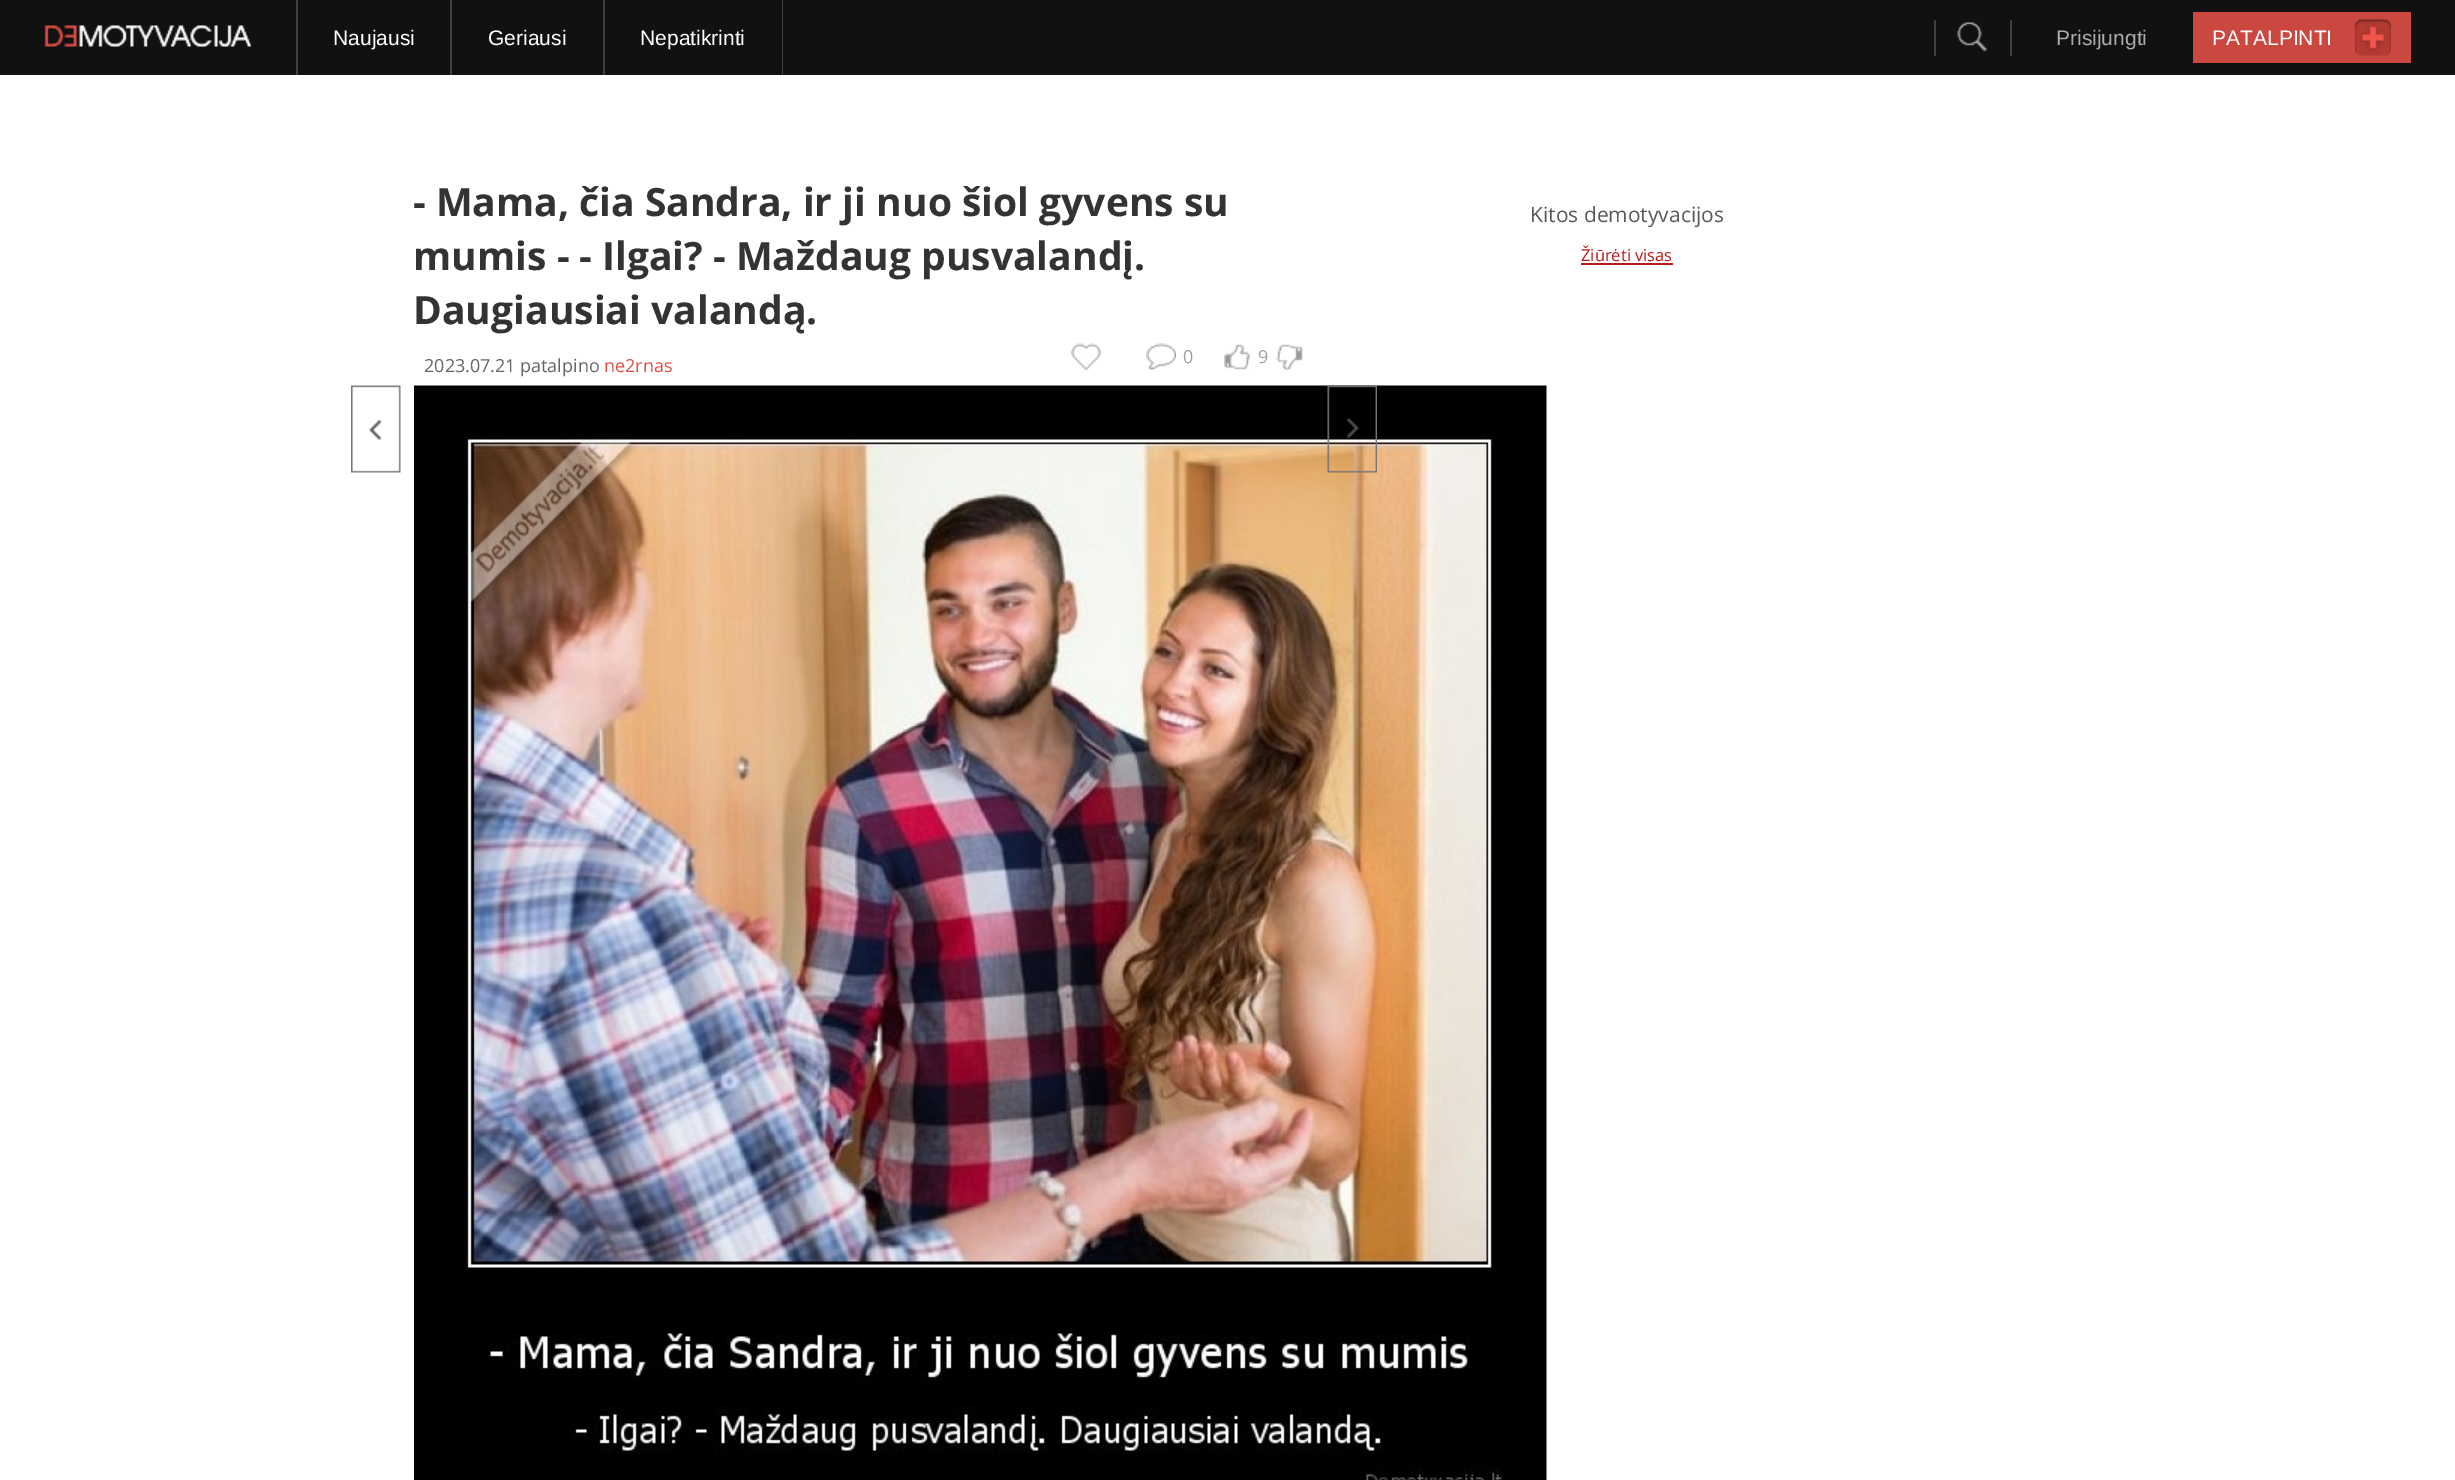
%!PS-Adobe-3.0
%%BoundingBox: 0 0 2455 1480
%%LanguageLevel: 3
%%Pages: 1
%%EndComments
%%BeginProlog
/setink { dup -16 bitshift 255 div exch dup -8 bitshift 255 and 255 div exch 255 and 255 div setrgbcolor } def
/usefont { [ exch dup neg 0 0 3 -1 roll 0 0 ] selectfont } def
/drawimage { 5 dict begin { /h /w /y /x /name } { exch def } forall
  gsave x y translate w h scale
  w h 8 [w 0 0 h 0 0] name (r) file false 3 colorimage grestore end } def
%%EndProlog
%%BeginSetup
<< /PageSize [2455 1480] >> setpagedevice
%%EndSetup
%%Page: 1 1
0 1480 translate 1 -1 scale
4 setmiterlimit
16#FFFFFF setink
0 0 2455 1480 rectfill
16#111111 setink
0 0 2455 75 rectfill
(img1.raw) 44 25 208 22 drawimage
16#404040 setink
296 0 2 75 rectfill
450 0 2 75 rectfill
/LiberationSans-Regular 21 usefont
16#FFFFFF setink
333 45 moveto (Naujausi) show
16#404040 setink
603 0 2 75 rectfill
16#FFFFFF setink
488 45 moveto (Geriausi) show
16#404040 setink
782 0 1 75 rectfill
16#FFFFFF setink
640 45 moveto (Nepatikrinti) show
(img2.raw) 1957 22 31 30 drawimage
16#404040 setink
2010 20 2 36 rectfill
1934 20 2 36 rectfill
16#ABABAB setink
2056 45 moveto (Prisijungti) show
16#CB4840 setink
2193 12 218 51 rectfill
16#FFFFFF setink
2212 45 moveto (PATALPINTI) show
(img3.raw) 2355 19 36 37 drawimage
/OpenSans-Bold 39 usefont
16#333333 setink
[
    [(- Mama, čia Sandra, ir ji nuo šiol gyvens su) 413 216]
    [(mumis - - Ilgai? - Maždaug pusvalandį.) 413 270]
    [(Daugiausiai valandą.) 413 324]
] { aload pop moveto show } forall
(img4.raw) 1071 343 30 28 drawimage
(img5.raw) 1146 343 30 28 drawimage
/OpenSans-Regular 18 usefont
16#A0A0A0 setink
1183 363 moveto (0) show
(img6.raw) 1224 344 27 26 drawimage
1258 363 moveto (9) show
(img7.raw) 1276 344 27 27 drawimage
16#656565 setink
424 372 moveto (2023.07.21) show
520 372 moveto (patalpino) show
16#DF4E45 setink
604 372 moveto (ne2rnas) show
(img8.raw) 351 385 50 88 drawimage
(img9.raw) 414 385 1133 1095 drawimage
(img10.raw) 1327 385 50 88 drawimage
/OpenSans-Regular 21 usefont
16#595959 setink
1530 222 moveto (Kitos demotyvacijos) show
/OpenSans-Regular 16.5 usefont
16#B61919 setink
1581 261 moveto (Žiūrėti visas) show
1581 263 92 2 rectfill
showpage
%%EOF
